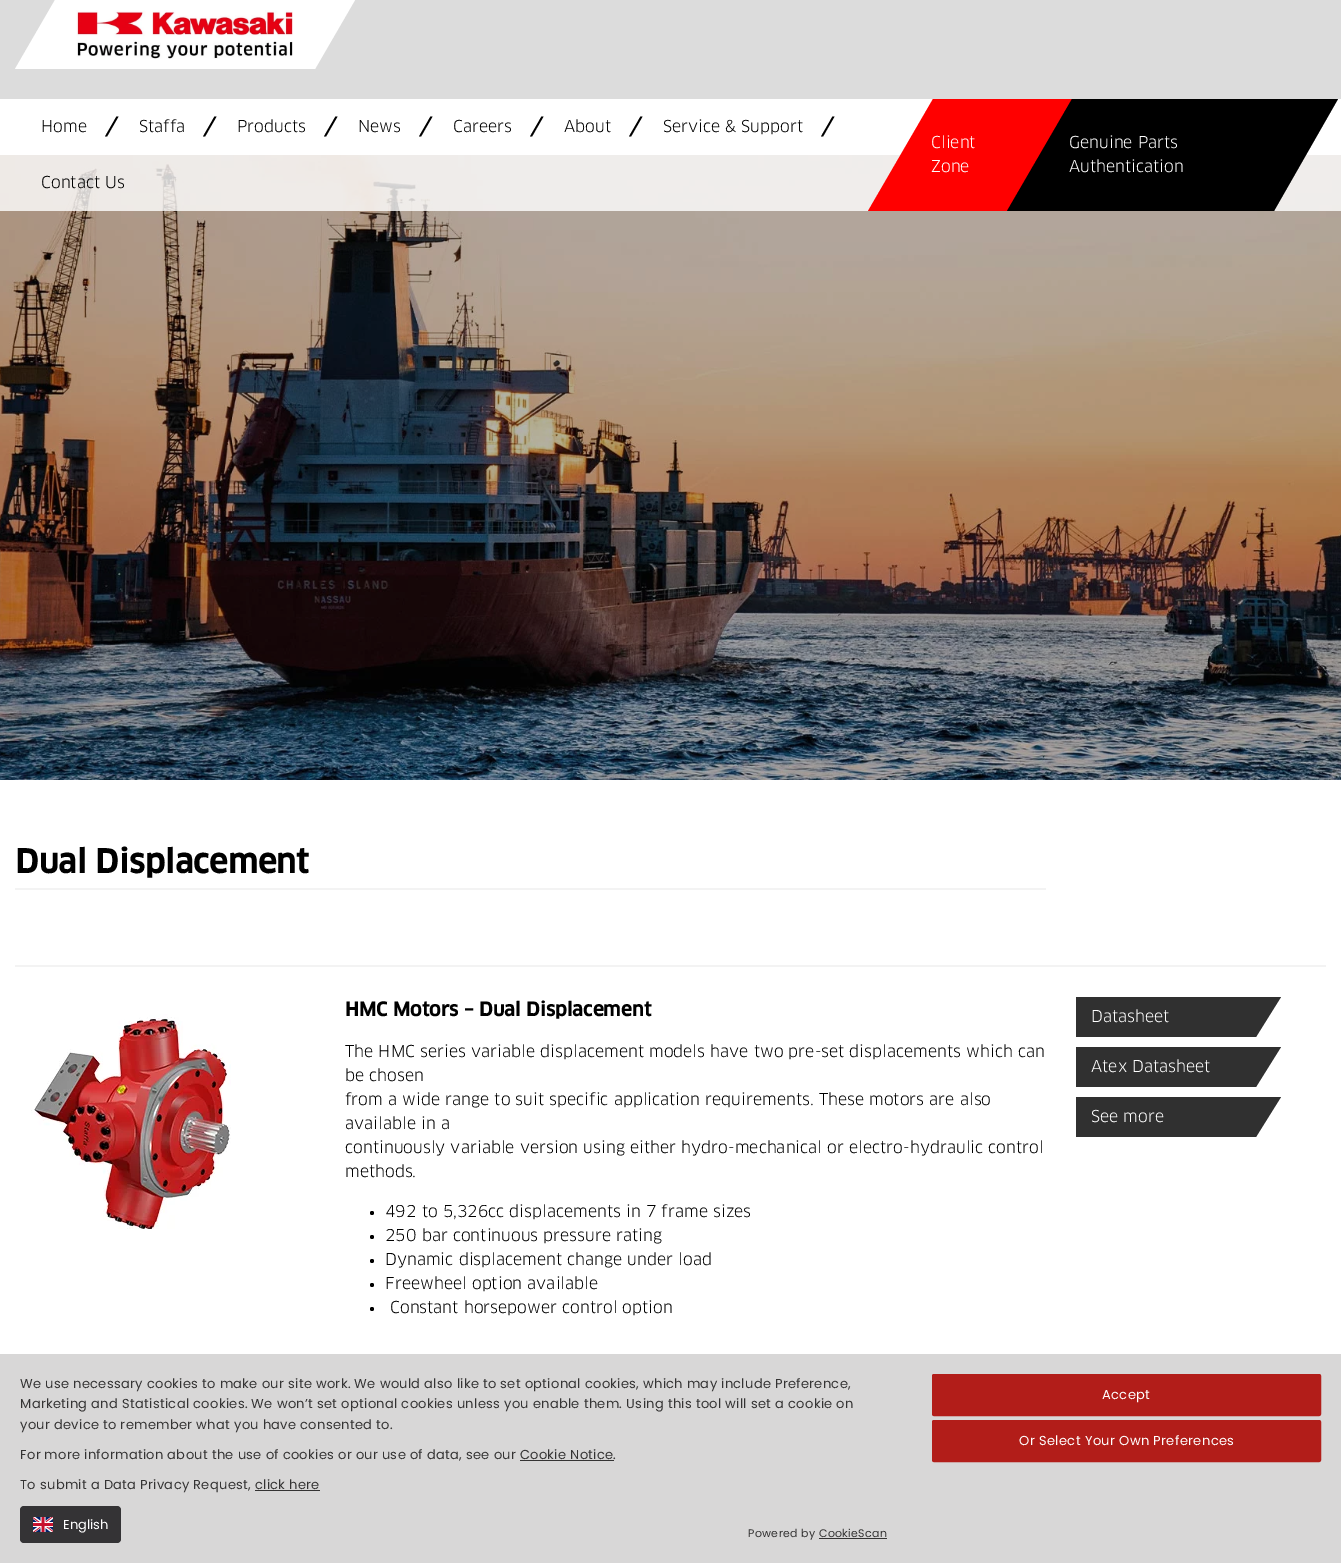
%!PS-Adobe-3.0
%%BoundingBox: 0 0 1341 1563
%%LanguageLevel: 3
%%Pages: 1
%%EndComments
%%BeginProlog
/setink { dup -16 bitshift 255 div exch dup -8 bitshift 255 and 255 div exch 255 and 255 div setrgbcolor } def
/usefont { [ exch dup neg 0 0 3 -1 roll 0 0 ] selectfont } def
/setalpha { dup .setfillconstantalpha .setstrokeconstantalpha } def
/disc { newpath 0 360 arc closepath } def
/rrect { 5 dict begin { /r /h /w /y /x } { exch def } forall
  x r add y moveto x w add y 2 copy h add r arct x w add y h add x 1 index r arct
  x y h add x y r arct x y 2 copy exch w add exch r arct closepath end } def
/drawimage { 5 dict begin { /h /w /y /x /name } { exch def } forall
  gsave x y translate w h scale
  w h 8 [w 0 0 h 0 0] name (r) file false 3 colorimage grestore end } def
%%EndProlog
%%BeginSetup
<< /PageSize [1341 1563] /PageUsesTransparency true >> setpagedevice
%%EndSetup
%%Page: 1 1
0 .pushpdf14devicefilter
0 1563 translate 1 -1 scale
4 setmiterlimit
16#FFFFFF setink
0 0 1341 1563 rectfill
16#DCDCDC setink
0 0 1341 99 rectfill
16#FFFFFF setink
55 0 moveto 355 0 lineto 315 69 lineto 15 69 lineto closepath fill
(img1.raw) 76 10 217 49 drawimage
(img2.raw) 0 155 1341 625 drawimage
0.8 setalpha
0 155 1341 56 rectfill
/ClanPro-Regular 16 usefont
1 setalpha
16#000000 setink
41 132 moveto (Home) show
116.5 116.5 moveto 118.5 116.5 lineto 107 136.5 lineto 105 136.5 lineto closepath fill
139 132 moveto (Staffa) show
214.5 116.5 moveto 216.5 116.5 lineto 205 136.5 lineto 203 136.5 lineto closepath fill
237 132 moveto (Products) show
335.5 116.5 moveto 337.5 116.5 lineto 326 136.5 lineto 324 136.5 lineto closepath fill
358 132 moveto (News) show
430.5 116.5 moveto 432.5 116.5 lineto 421 136.5 lineto 419 136.5 lineto closepath fill
453 132 moveto (Careers) show
541.5 116.5 moveto 543.5 116.5 lineto 532 136.5 lineto 530 136.5 lineto closepath fill
564 132 moveto (About) show
640.5 116.5 moveto 642.5 116.5 lineto 631 136.5 lineto 629 136.5 lineto closepath fill
663 132 moveto (Service & Support) show
832.5 116.5 moveto 834.5 116.5 lineto 823 136.5 lineto 821 136.5 lineto closepath fill
41 188 moveto (Contact Us) show
16#FF0000 setink
933 99 moveto 1073 99 lineto 1008 211 lineto 868 211 lineto closepath fill
16#FFFFFF setink
931 148 moveto (Client) show
931 172 moveto (Zone) show
16#000000 setink
1072 99 moveto 1338 99 lineto 1274 211 lineto 1007 211 lineto closepath fill
16#FFFFFF setink
1069 148 moveto (Genuine Parts) show
1069 172 moveto (Authentication) show
16#F3F3F3 setink
15 888 1031 2 rectfill
/ClanPro-Bold 32 usefont
16#000000 setink
15 873 moveto (Dual Displacement) show
16#F3F3F3 setink
15 965 1311 2 rectfill
(img3.raw) 31 1014 200 215 drawimage
/ClanPro-Bold 18.75 usefont
16#000000 setink
345 1016 moveto (HMC Motors – Dual Displacement) show
/ClanPro-Regular 16 usefont
[
    [(The HMC series variable displacement models have two pre-set displacements which can) 345 1057]
    [(be chosen) 345 1081]
    [(from a wide range to suit specific application requirements. These motors are also) 345 1105]
    [(available in a) 345 1129]
    [(continuously variable version using either hydro-mechanical or electro-hydraulic control) 345 1153]
    [(methods.) 345 1177]
] { aload pop moveto show } forall
372 1213 2 disc fill
385 1217 moveto (492 to 5,326cc displacements in 7 frame sizes) show
372 1237 2 disc fill
385 1241 moveto (250 bar continuous pressure rating) show
372 1261 2 disc fill
385 1265 moveto (Dynamic displacement change under load) show
372 1285 2 disc fill
385 1289 moveto (Freewheel option available) show
372 1309 2 disc fill
390 1313 moveto (Constant horsepower control option) show
16#303030 setink
1076 997 180 40 rectfill
16#FFFFFF setink
1091 1022 moveto (Datasheet) show
16#303030 setink
1256 1037 moveto 1256 997 lineto 1281 997 lineto closepath fill
1076 1047 180 40 rectfill
16#FFFFFF setink
1091 1072 moveto (Atex Datasheet) show
16#303030 setink
1256 1087 moveto 1256 1047 lineto 1281 1047 lineto closepath fill
1076 1097 180 40 rectfill
16#FFFFFF setink
1091 1122 moveto (See more) show
16#303030 setink
1256 1137 moveto 1256 1097 lineto 1281 1097 lineto closepath fill
16#D8D7D7 setink
0 1354 1341 209 rectfill
/Poppins-Regular 13 usefont
16#343333 setink
20 1388 moveto 0.33 0 (We use necessary cookies to make our site work. We would also like to set optional cookies, which may include Preference,) ashow
20 1408 moveto 0.33 0 (Marketing and Statistical cookies. We won’t set optional cookies unless you enable them. Using this tool will set a cookie on) ashow
20 1429 moveto 0.33 0 (your device to remember what you have consented to.) ashow
20 1459 moveto 0.33 0 (For more information about the use of cookies or our use of data, see our Cookie Notice.) ashow
520 1460 94 1 rectfill
20 1489 moveto 0.33 0 (To submit a Data Privacy Request, click here) ashow
255 1490 65 1 rectfill
16#343335 setink
20 1506 101 37 4 rrect fill
21 1507 99 35 rectfill
(img4.raw) 33 1517 20 15 drawimage
16#FFFFFF setink
63 1529 moveto (English) show
/Poppins-Regular 11 usefont
16#343333 setink
748 1537 moveto 0.33 0 (Powered by CookieScan) ashow
819 1538 68 1 rectfill
16#B21D19 setink
932.5 1374.5 388 41 1.5 rrect gsave fill grestore
stroke
/Poppins-Regular 13 usefont
16#FFFFFF setink
1102 1399 moveto 0.4 0 (Accept) ashow
16#B21D19 setink
932.5 1420.5 388 41 1.5 rrect gsave fill grestore
stroke
16#FFFFFF setink
1019 1445 moveto 0.4 0 (Or Select Your Own Preferences) ashow
.poppdf14devicefilter showpage
%%EOF
